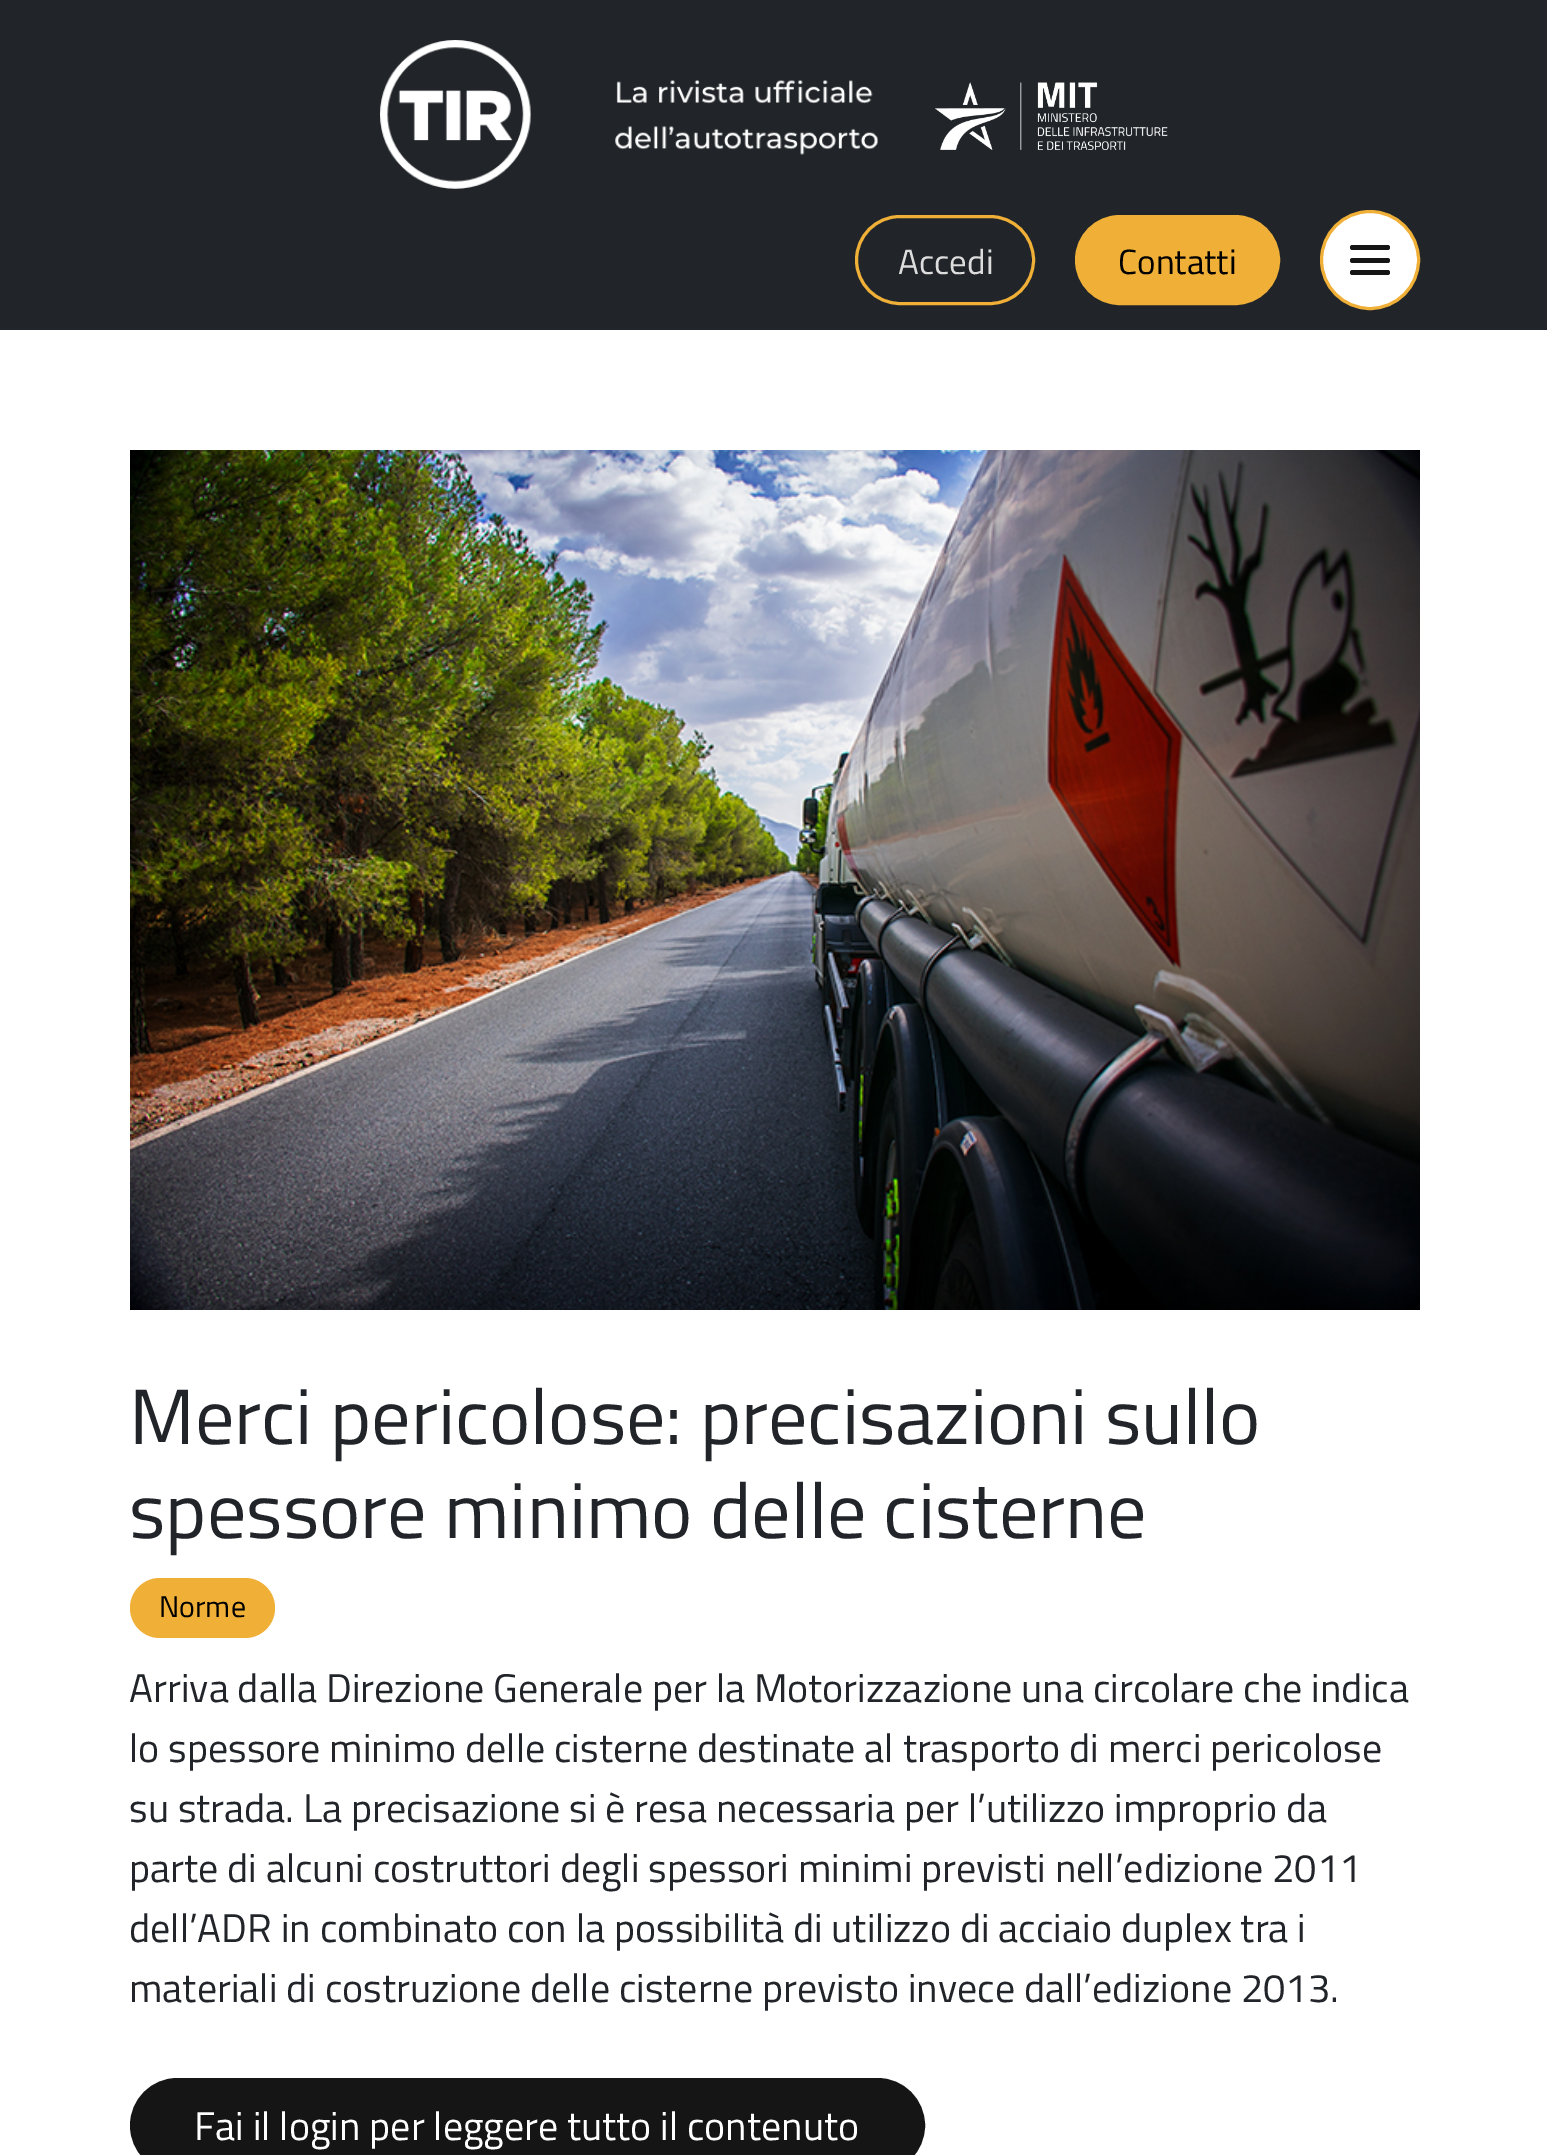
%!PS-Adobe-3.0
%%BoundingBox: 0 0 1547 2155
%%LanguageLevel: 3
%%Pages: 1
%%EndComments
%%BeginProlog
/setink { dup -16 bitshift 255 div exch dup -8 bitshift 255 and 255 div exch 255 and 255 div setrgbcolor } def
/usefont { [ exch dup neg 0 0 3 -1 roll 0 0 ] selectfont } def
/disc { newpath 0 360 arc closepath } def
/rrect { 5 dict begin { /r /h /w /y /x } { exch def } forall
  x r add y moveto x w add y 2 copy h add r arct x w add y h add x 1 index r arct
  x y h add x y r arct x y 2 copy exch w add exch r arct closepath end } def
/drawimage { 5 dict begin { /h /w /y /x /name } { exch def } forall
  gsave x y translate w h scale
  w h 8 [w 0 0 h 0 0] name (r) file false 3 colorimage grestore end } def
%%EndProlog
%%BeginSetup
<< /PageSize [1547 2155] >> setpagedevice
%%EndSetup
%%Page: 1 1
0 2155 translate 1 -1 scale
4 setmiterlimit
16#FFFFFF setink
0 0 1547 2155 rectfill
16#212529 setink
0 0 1547 330 rectfill
(img1.raw) 380 40 498 149 drawimage
(img2.raw) 935 82 233 68 drawimage
16#F0B038 setink
3 setlinewidth
856.5 216.5 177 87 43.5 rrect stroke
/TitilliumWeb-Regular 35 usefont
16#DDDDDD setink
898 274 moveto (Accedi) show
16#F0B038 setink
1076.5 216.5 202 87 43.5 rrect gsave fill grestore
stroke
16#000000 setink
1118 274 moveto (Contatti) show
16#FFFFFF setink
1370 260 48.5 disc gsave fill grestore
16#F0B038 setink
stroke
16#151515 setink
1350 270 40 5 2.5 rrect fill
1350 245 40 5 2.5 rrect fill
1350 258 40 5 2.5 rrect fill
(img3.raw) 130 450 1290 860 drawimage
/TitilliumWeb-Regular 78.25 usefont
16#212529 setink
129 1444 moveto (Merci pericolose: precisazioni sullo) show
129 1538 moveto (spessore minimo delle cisterne) show
16#F0B038 setink
130 1578 145 60 30 rrect fill
/TitilliumWeb-Regular 30 usefont
16#000000 setink
159 1617 moveto (Norme) show
/TitilliumWeb-Regular 40 usefont
16#212529 setink
[
    [(Arriva dalla Direzione Generale per la Motorizzazione una circolare che indica) 129 1702]
    [(lo spessore minimo delle cisterne destinate al trasporto di merci pericolose) 129 1762]
    [(su strada. La precisazione si è resa necessaria per l’utilizzo improprio da) 129 1822]
    [(parte di alcuni costruttori degli spessori minimi previsti nell’edizione 2011) 129 1882]
    [(dell’ADR in combinato con la possibilità di utilizzo di acciaio duplex tra i) 129 1942]
    [(materiali di costruzione delle cisterne previsto invece dall’edizione 2013.) 129 2002]
] { aload pop moveto show } forall
16#151515 setink
131.5 2079.5 792 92 46 rrect gsave fill grestore
stroke
16#FFFFFF setink
194 2140 moveto (Fai il login per leggere tutto il contenuto) show
showpage
%%EOF
